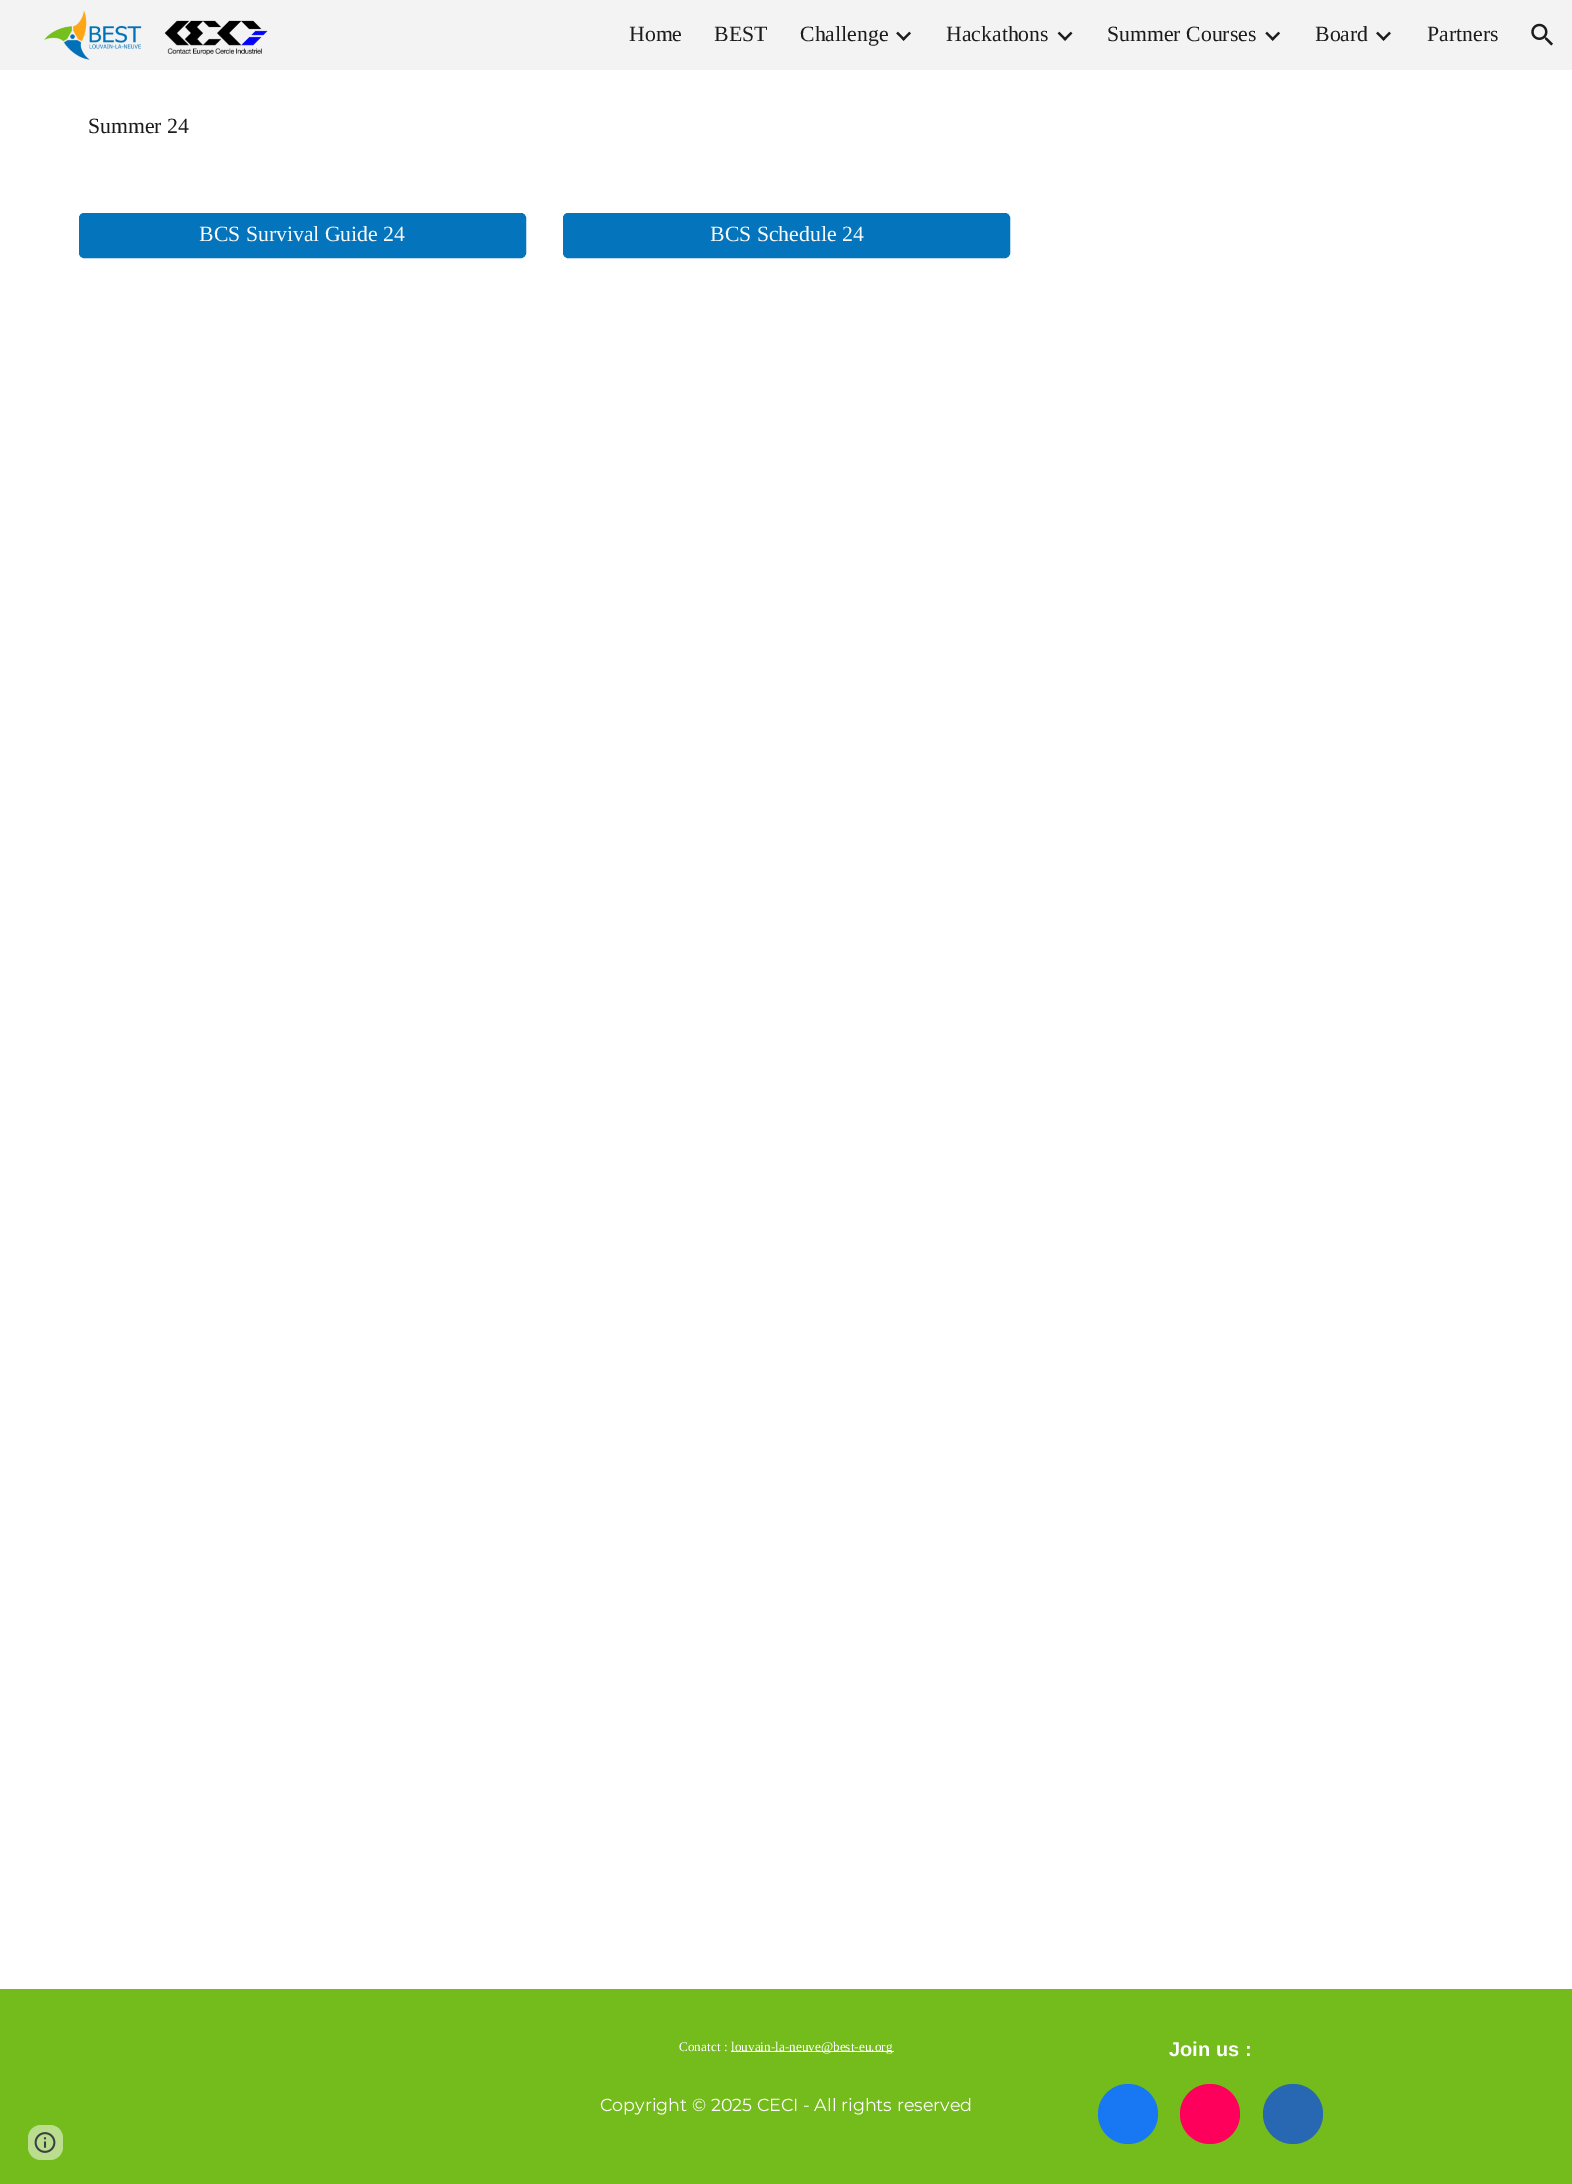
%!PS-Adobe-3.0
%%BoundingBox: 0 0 1572 2184
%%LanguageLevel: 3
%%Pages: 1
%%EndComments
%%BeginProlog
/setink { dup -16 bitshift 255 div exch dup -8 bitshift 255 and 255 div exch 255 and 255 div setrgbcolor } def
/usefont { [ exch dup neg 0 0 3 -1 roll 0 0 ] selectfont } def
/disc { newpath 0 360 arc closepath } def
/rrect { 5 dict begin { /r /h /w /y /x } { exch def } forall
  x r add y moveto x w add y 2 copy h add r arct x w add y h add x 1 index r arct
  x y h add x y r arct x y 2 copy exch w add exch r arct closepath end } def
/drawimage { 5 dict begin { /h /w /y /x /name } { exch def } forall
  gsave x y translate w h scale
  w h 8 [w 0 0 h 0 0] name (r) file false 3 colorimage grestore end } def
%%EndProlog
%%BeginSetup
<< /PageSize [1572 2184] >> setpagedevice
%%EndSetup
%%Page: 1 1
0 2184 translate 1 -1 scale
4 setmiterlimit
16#FFFFFF setink
0 0 1572 2184 rectfill
16#F3F3F3 setink
0 0 1572 70 rectfill
(img1.raw) 44 10 224 50 drawimage
/LiberationSerif-Regular 21.75 usefont
16#1C1C1C setink
[
    [(Home) 629 41]
    [(BEST) 714 41]
    [(Challenge) 800 41]
] { aload pop moveto show } forall
(img2.raw) 896 31 15 10 drawimage
946 41 moveto (Hackathons) show
(img3.raw) 1057 31 16 10 drawimage
1107 41 moveto (Summer Courses) show
(img4.raw) 1265 31 16 10 drawimage
1315 41 moveto (Board) show
(img5.raw) 1376 31 15 10 drawimage
1427 41 moveto (Partners) show
(img6.raw) 1531 23 22 23 drawimage
88 133 moveto (Summer 24) show
16#0474BC setink
79.5 213.5 446 44 4.5 rrect gsave fill grestore
stroke
16#F9F9F9 setink
199 241 moveto (BCS Survival Guide 24) show
16#0474BC setink
563.5 213.5 446 44 4.5 rrect gsave fill grestore
stroke
16#F9F9F9 setink
710 241 moveto (BCS Schedule 24) show
16#74BC1C setink
0 1989 1572 195 rectfill
/LiberationSerif-Regular 13.25 usefont
16#FFFFFF setink
679 2051 moveto (Conatct :) show
731 2051 163 1 rectfill
731 2051 moveto (louvain-la-neuve@best-eu.org) show
/Montserrat-Regular 17.5 usefont
600 2111 moveto (Copyright © 2025 CECI - All rights reserved) show
/LiberationSans-Bold 20 usefont
1169 2056 moveto (Join us :) show
16#1877F2 setink
1128 2114 30 disc fill
16#FE005C setink
1210 2114 30 disc fill
16#2867B2 setink
1293 2114 30 disc fill
16#BADE8E setink
28 2125 35 35 13 rrect fill
(img7.raw) 34 2132 22 21 drawimage
showpage
%%EOF
